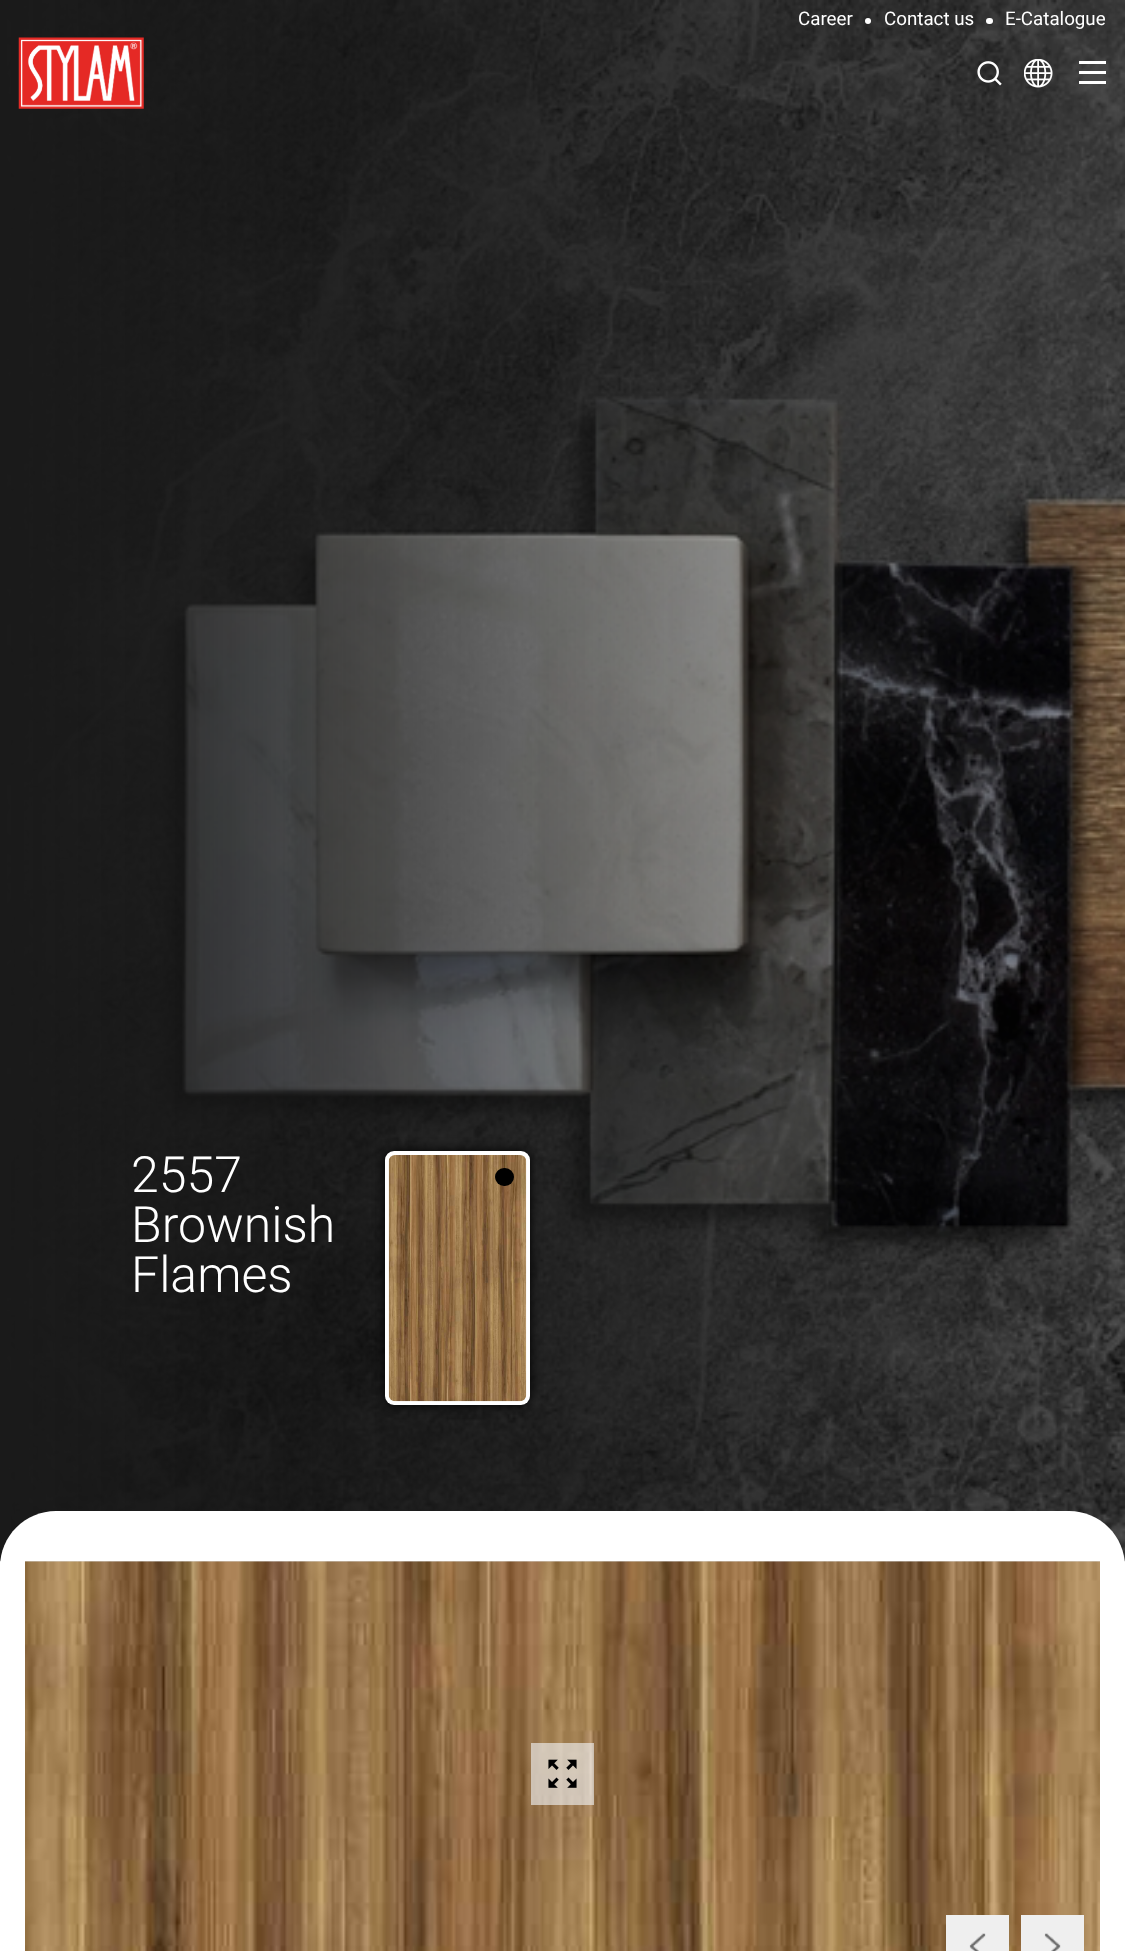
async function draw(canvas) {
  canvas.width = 1125;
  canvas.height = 1951;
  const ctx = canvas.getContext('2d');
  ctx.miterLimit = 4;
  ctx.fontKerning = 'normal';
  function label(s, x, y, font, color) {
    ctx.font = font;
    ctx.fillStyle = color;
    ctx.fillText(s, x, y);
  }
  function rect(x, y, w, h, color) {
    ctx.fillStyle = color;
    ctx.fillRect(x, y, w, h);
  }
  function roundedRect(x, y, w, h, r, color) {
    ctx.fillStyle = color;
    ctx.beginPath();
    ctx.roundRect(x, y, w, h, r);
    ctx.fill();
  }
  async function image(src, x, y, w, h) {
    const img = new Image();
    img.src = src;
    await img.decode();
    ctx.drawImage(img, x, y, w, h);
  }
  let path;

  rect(0, 0, 1125, 1951, '#fff');
  await image('assets/img4.png', 0, 0, 1125, 1562);
  label('Career', 798, 25, '18.75px Roboto', '#fff');
  ctx.beginPath();
  ctx.arc(868, 21, 3, 0, 2 * Math.PI);
  ctx.fill();
  label('Contact us', 884, 25, '18.75px Roboto', '#fff');
  roundedRect(986, 18, 7, 6, 3, '#fff');
  label('E-Catalogue', 1005, 25, '18.75px Roboto', '#fff');
  await image('assets/img1.png', 18, 37, 126, 72);
  await image('assets/img2.png', 977, 61, 25, 25);
  await image('assets/img3.png', 1024, 59, 29, 29);
  rect(1079, 71, 27, 3, '#fff');
  rect(1079, 61, 27, 3, '#fff');
  rect(1079, 81, 27, 3, '#fff');
  label('2557', 131, 1192, '300 50px Roboto', '#fff');
  label('Brownish', 131, 1242, '300 50px Roboto', '#fff');
  label('Flames', 131, 1292, '300 50px Roboto', '#fff');
  ctx.fillStyle = '#000';
  ctx.filter = 'blur(6px)';
  ctx.beginPath();
  ctx.roundRect(385, 1151, 145, 254, 9);
  ctx.fill();
  ctx.filter = 'none';
  roundedRect(385, 1151, 145, 254, 9, '#fff');
  await image('assets/img5.png', 388, 1155, 139, 247);
  roundedRect(495, 1168, 19, 18, 9, '#000');
  ctx.fillStyle = '#fff';
  path = new Path2D('M56 1511H1069C1100 1511 1125 1536 1125 1567V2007H0V1567C0 1536 25 1511 56 1511Z');
  ctx.fill(path);
  rect(25, 1561, 1075, 1, '#dedede');
  await image('assets/img6.png', 25, 1561, 1075, 390);
  rect(531, 1743, 63, 62, '#eeeeeea6');
  await image('assets/img7.png', 548, 1759, 29, 29);
  rect(946, 1915, 63, 36, '#efefef');
  await image('assets/img8.png', 969, 1933, 17, 18);
  rect(1021, 1915, 63, 36, '#efefef');
  await image('assets/img9.png', 1044, 1933, 17, 18);
}

draw(document.querySelector('canvas'));
